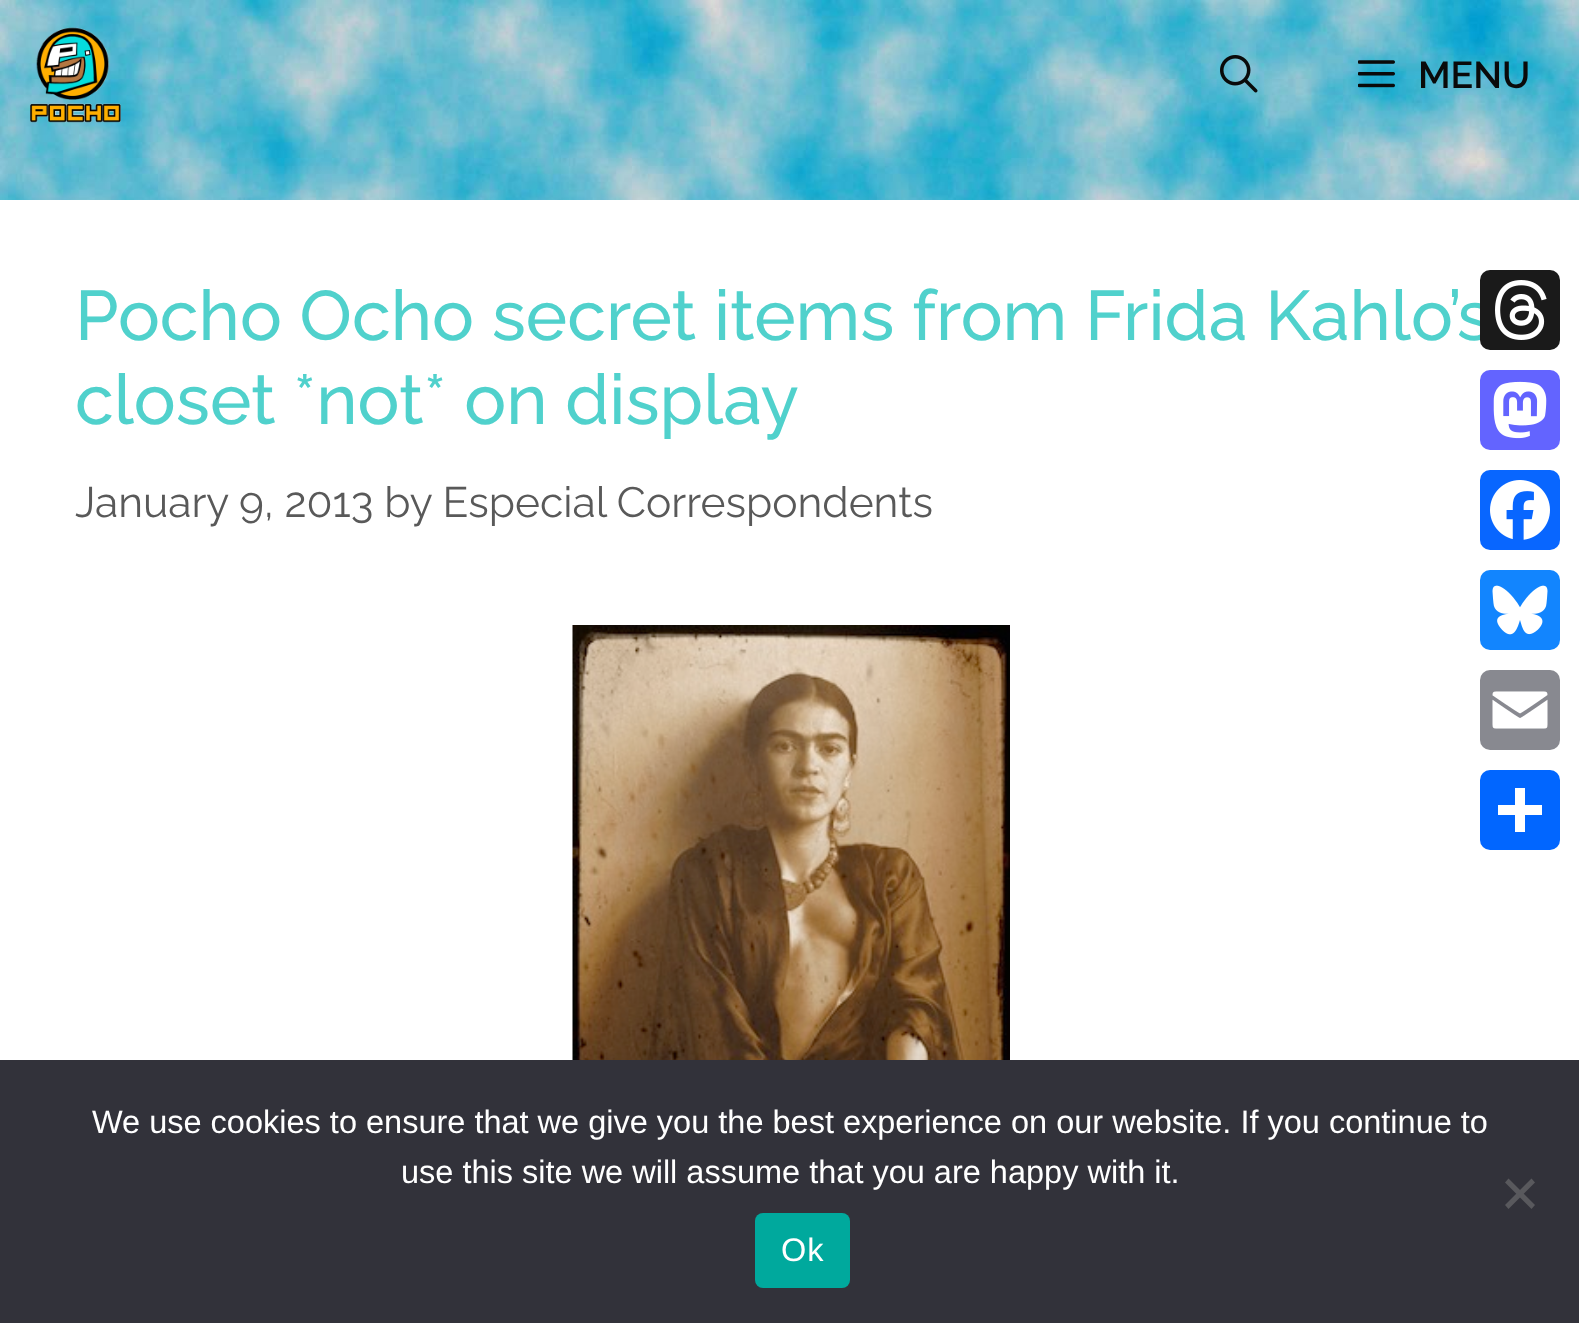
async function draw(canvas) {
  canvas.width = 1579;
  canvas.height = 1323;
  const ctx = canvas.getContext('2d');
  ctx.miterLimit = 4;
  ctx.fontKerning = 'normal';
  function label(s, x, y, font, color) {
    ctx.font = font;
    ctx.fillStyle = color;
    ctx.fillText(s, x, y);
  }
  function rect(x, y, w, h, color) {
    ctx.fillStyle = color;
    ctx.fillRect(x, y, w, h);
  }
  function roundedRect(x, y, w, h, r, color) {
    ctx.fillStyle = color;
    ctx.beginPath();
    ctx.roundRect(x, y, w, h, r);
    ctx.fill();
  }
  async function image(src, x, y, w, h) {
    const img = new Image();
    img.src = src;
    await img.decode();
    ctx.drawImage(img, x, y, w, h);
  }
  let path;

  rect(0, 0, 1579, 1323, '#fff');
  await image('assets/img1.png', 0, 0, 1579, 200);
  await image('assets/img2.png', 30, 27, 91, 96);
  await image('assets/img3.png', 1220, 55, 38, 38);
  await image('assets/img4.png', 1358, 60, 37, 28);
  label('MENU', 1418, 88, '600 37.5px Raleway', '#0a0a0a');
  label('Pocho Ocho secret items from Frida Kahlo’s', 75, 340, '500 70px Raleway', '#50d1cc');
  label('closet *not* on display', 75, 424, '500 70px Raleway', '#50d1cc');
  label('January 9, 2013 by Especial Correspondents', 75, 517, '42.5px Raleway', '#595959');
  await image('assets/img5.png', 572, 625, 438, 435);
  roundedRect(1480, 270, 80, 80, 10, '#1a1a1a');
  await image('assets/img6.png', 1495, 280, 52, 60);
  roundedRect(1480, 370, 80, 80, 10, '#6364ff');
  await image('assets/img7.png', 1493, 381, 54, 58);
  roundedRect(1480, 470, 80, 80, 10, '#0866ff');
  await image('assets/img8.png', 1490, 480, 60, 60);
  roundedRect(1480, 570, 80, 80, 10, '#1285fe');
  await image('assets/img9.png', 1492, 585, 56, 50);
  roundedRect(1480, 670, 80, 80, 10, '#888990');
  await image('assets/img10.png', 1492, 691, 56, 38);
  roundedRect(1480, 770, 80, 80, 10, '#0166ff');
  rect(1515, 788, 10, 44, '#fff');
  rect(1498, 805, 44, 10, '#fff');
  rect(0, 1060, 1579, 263, '#32323a');
  label('We use cookies to ensure that we give you the best experience on our website. If you continue to', 92, 1133, '32.5px Liberation Sans', '#fff');
  label('use this site we will assume that you are happy with it.', 401, 1183, '32.5px Liberation Sans', '#fff');
  ctx.fillStyle = '#59595d';
  path = new Path2D('M1531.5 1178.5L1535 1182.5L1508.5 1209L1505 1205Z');
  ctx.fill(path);
  path = new Path2D('M1505 1182.5L1508.5 1178.5L1535 1205L1531.5 1209Z');
  ctx.fill(path);
  roundedRect(755, 1213, 95, 75, 8, '#00a99d');
  ctx.letterSpacing = '1px';
  label('Ok', 781, 1261, '32.5px Liberation Sans', '#fff');
}

draw(document.querySelector('canvas'));
